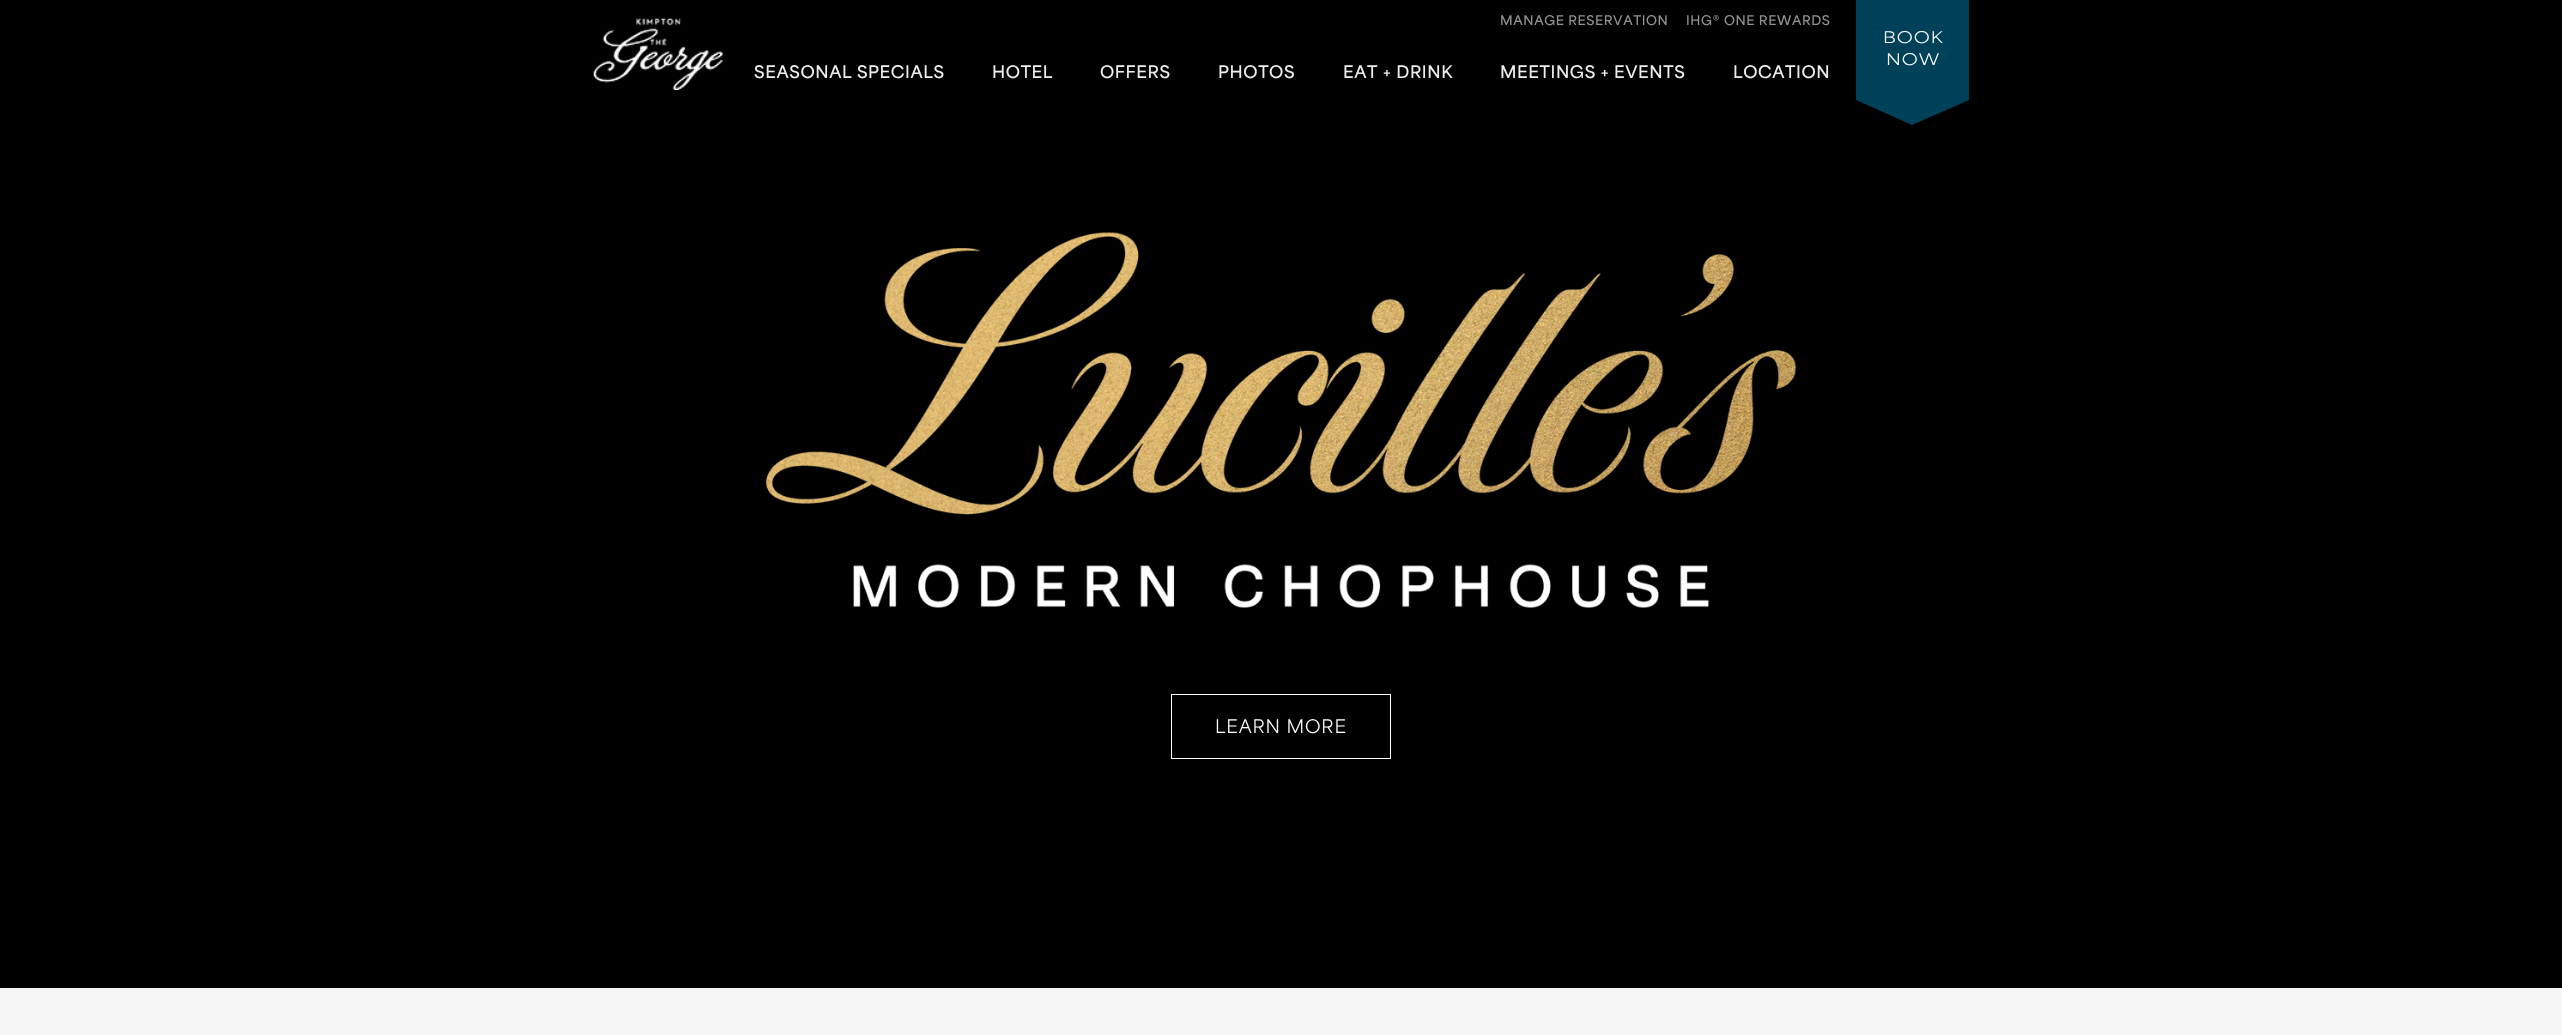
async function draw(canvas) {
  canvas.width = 2562;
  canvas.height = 1035;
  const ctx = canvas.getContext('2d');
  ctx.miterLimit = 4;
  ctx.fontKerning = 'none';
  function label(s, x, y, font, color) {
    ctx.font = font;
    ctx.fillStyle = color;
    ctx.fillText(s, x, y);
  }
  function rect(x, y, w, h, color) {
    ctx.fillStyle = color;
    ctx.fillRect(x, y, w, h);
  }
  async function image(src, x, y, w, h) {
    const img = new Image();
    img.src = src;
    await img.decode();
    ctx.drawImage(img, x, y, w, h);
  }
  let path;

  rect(0, 0, 2562, 1035, '#f5f5f5');
  rect(0, 0, 2562, 988, '#000');
  await image('assets/img1.png', 593, 18, 130, 72);
  ctx.letterSpacing = '0.6px';
  label('MANAGE RESERVATION', 1500, 25, '600 12.5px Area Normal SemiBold', '#929493');
  label('IHG® ONE REWARDS', 1686, 25, '600 12.5px Area Normal SemiBold', '#929493');
  rect(1856, 0, 113, 100, '#00415a');
  ctx.letterSpacing = '1px';
  label('BOOK', 1883, 43, '15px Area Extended', '#fff');
  label('NOW', 1886, 65, '15px Area Extended', '#fff');
  ctx.fillStyle = '#00415a';
  path = new Path2D('M1856 100H1969L1912 125Z');
  ctx.fill(path);
  ctx.letterSpacing = '0.6px';
  label('SEASONAL SPECIALS', 754, 78, '600 16.25px Area Normal SemiBold', '#eee');
  label('HOTEL', 992, 78, '600 16.25px Area Normal SemiBold', '#eee');
  label('OFFERS', 1100, 78, '600 16.25px Area Normal SemiBold', '#eee');
  label('PHOTOS', 1218, 78, '600 16.25px Area Normal SemiBold', '#eee');
  label('EAT + DRINK', 1343, 78, '600 16.25px Area Normal SemiBold', '#eee');
  label('MEETINGS + EVENTS', 1500, 78, '600 16.25px Area Normal SemiBold', '#eee');
  label('LOCATION', 1733, 78, '600 16.25px Area Normal SemiBold', '#eee');
  await image('assets/img2.png', 766, 232, 1031, 376);
  ctx.strokeStyle = '#fff';
  ctx.strokeRect(1171.5, 694.5, 219, 64);
  ctx.letterSpacing = '0.9px';
  label('LEARN MORE', 1215, 733, '17.5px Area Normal', '#fff');
}

draw(document.querySelector('canvas'));
